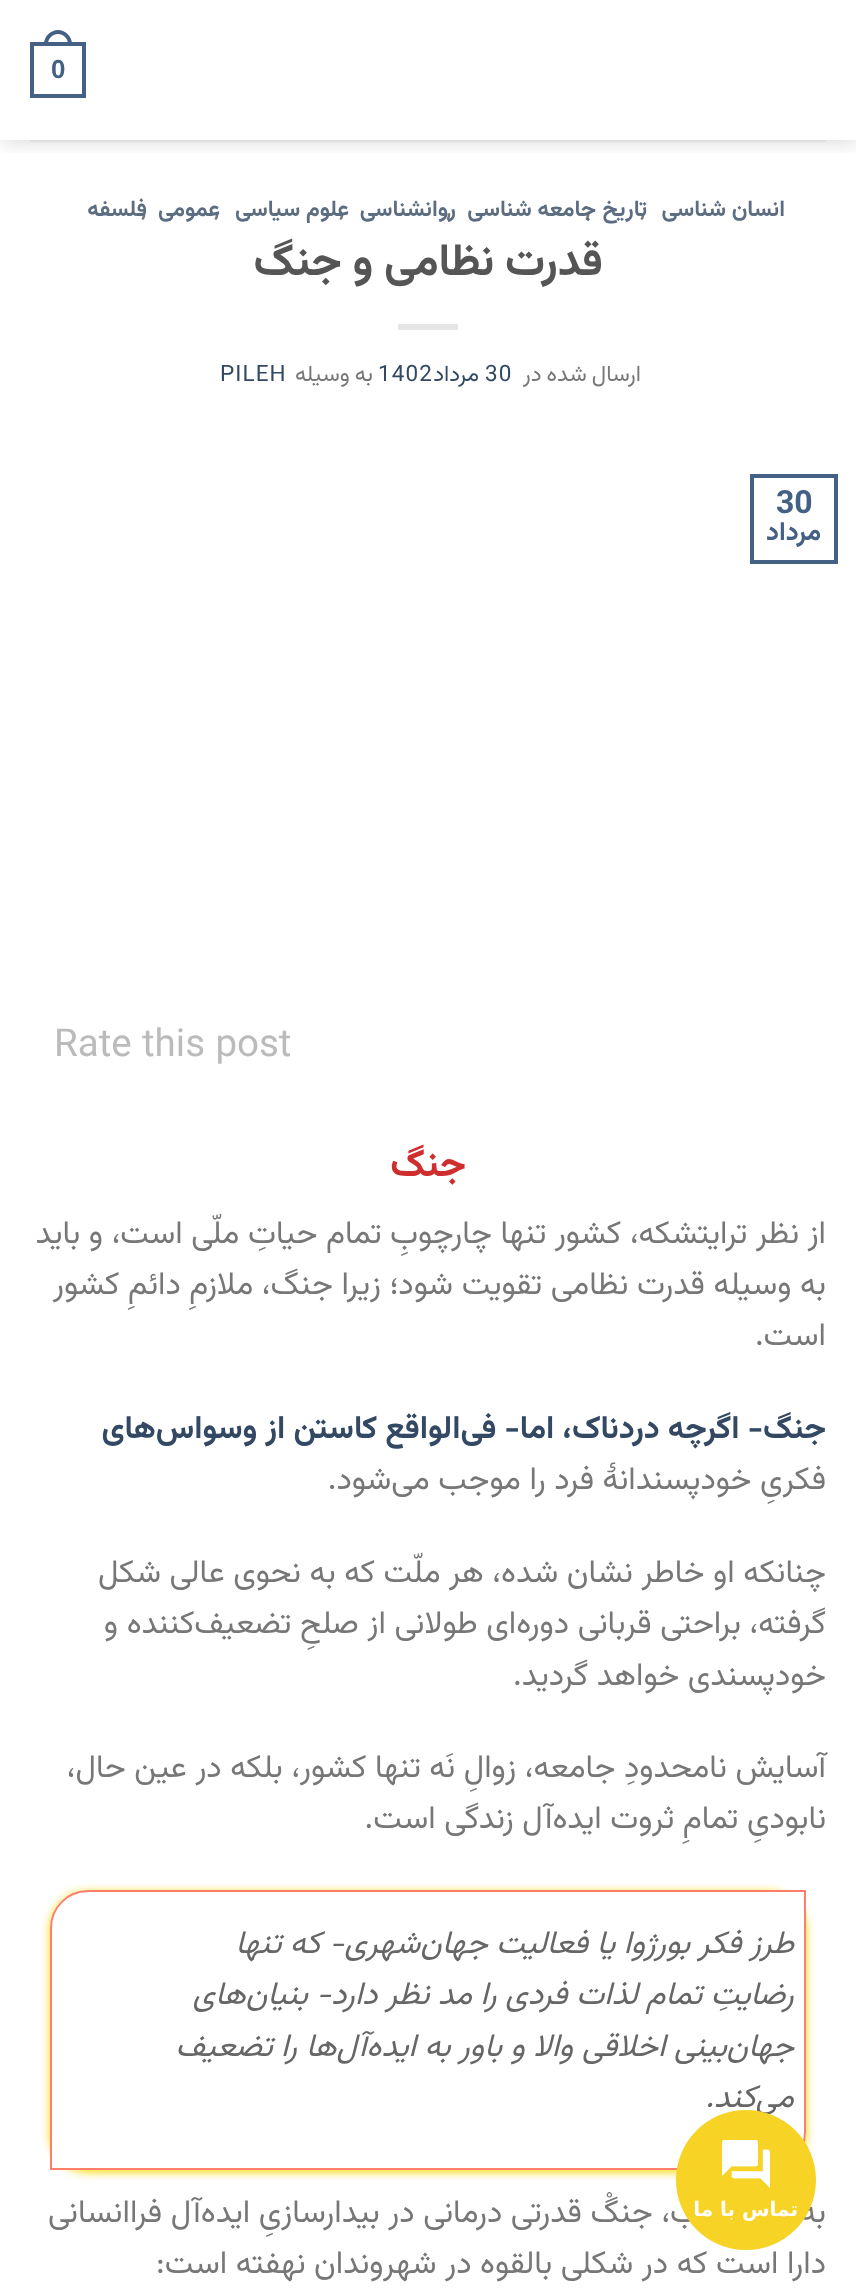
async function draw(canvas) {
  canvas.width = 856;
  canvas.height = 2289;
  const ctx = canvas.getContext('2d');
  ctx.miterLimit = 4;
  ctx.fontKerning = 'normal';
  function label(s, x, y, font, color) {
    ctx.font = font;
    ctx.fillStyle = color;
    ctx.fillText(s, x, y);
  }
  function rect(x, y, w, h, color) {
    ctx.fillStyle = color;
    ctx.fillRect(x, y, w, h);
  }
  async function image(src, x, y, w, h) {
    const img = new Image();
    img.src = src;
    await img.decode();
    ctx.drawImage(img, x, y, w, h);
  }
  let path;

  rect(0, 0, 856, 2289, '#fff');
  ctx.save();
  ctx.beginPath();
  ctx.rect(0, 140, 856, 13);
  ctx.clip();
  ctx.fillStyle = '#00000026';
  ctx.filter = 'blur(10px)';
  ctx.beginPath();
  ctx.rect(2, 2, 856, 140);
  ctx.fill();
  ctx.filter = 'none';
  ctx.restore();
  ctx.strokeStyle = '#446084';
  ctx.lineWidth = 4;
  ctx.strokeRect(32, 44, 52, 52);
  ctx.fillStyle = '#446084';
  path = new Path2D('M58 30C65.5 30 72 36.5 72 44V46H44V44C44 36.5 50.5 30 58 30ZM58 34C63.5 34 68 38.5 68 44V46H48V44C48 38.5 52.5 34 58 34Z');
  ctx.fill(path, 'evenodd');
  label('0', 51, 78, 'bold 26px Liberation Sans', '#446084');
  rect(30, 140, 796, 2, '#dfdfdf');
  ctx.letterSpacing = '1.1px';
  ctx.wordSpacing = '-1px';
  ctx.direction = 'rtl';
  label('انسان شناسی', 785, 216, 'bold 22.5px Vazirmatn', '#5c6d81');
  ctx.wordSpacing = '0px';
  ctx.direction = 'ltr';
  label(',', 640, 216, 'bold 22.5px Vazirmatn', '#777');
  ctx.direction = 'rtl';
  label('تاریخ', 647, 216, 'bold 22.5px Vazirmatn', '#5c6d81');
  ctx.direction = 'ltr';
  label(',', 585, 216, 'bold 22.5px Vazirmatn', '#777');
  ctx.wordSpacing = '-1px';
  ctx.direction = 'rtl';
  label('جامعه شناسی', 596, 216, 'bold 22.5px Vazirmatn', '#5c6d81');
  ctx.wordSpacing = '0px';
  ctx.direction = 'ltr';
  label(',', 446, 216, 'bold 22.5px Vazirmatn', '#777');
  ctx.direction = 'rtl';
  label('روانشناسی', 456, 216, 'bold 22.5px Vazirmatn', '#5c6d81');
  ctx.direction = 'ltr';
  label(',', 339, 216, 'bold 22.5px Vazirmatn', '#777');
  ctx.wordSpacing = '-1px';
  ctx.direction = 'rtl';
  label('علوم سیاسی', 349, 216, 'bold 22.5px Vazirmatn', '#5c6d81');
  ctx.wordSpacing = '0px';
  ctx.direction = 'ltr';
  label(',', 214, 216, 'bold 22.5px Vazirmatn', '#777');
  ctx.direction = 'rtl';
  label('عمومی', 220, 216, 'bold 22.5px Vazirmatn', '#5c6d81');
  ctx.direction = 'ltr';
  label(',', 141, 216, 'bold 22.5px Vazirmatn', '#777');
  ctx.direction = 'rtl';
  label('فلسفه', 147, 216, 'bold 22.5px Vazirmatn', '#5c6d81');
  ctx.letterSpacing = '0px';
  ctx.wordSpacing = '-0.5px';
  label('قدرت نظامی و جنگ', 603, 275, 'bold 44.75px Vazirmatn', '#555');
  rect(398, 324, 60, 6, '#e6e6e6');
  ctx.letterSpacing = '1.1px';
  ctx.wordSpacing = '-1px';
  label('ارسال شده در', 641, 381, '22.5px Vazirmatn', '#777');
  ctx.wordSpacing = '0px';
  ctx.direction = 'ltr';
  label('30', 485, 381, '22.5px Vazirmatn', '#334862');
  label('1402', 378, 381, '22.5px Vazirmatn', '#334862');
  ctx.direction = 'rtl';
  label('مرداد', 479, 381, '22.5px Vazirmatn', '#334862');
  ctx.wordSpacing = '-1px';
  label('به وسیله', 373, 381, '22.5px Vazirmatn', '#777');
  ctx.wordSpacing = '0px';
  ctx.direction = 'ltr';
  label('PILEH', 220, 381, '22.5px Vazirmatn', '#334862');
  ctx.strokeRect(752, 476, 84, 86);
  ctx.letterSpacing = '0px';
  label('30', 776, 513, 'bold 32px Vazirmatn', '#446084');
  ctx.direction = 'rtl';
  label('مرداد', 821, 540, 'bold 26px Vazirmatn', '#446084');
  ctx.direction = 'ltr';
  label('Rate this post', 54, 1056, '38.5px Vazirmatn', '#bbb');
  ctx.direction = 'rtl';
  label('جنگ', 466, 1176, 'bold 38.5px Vazirmatn', '#cf2e2e');
  label('از نظر ترایتشکه، کشور تنها چارچوبِ تمام حیاتِ ملّی است، و باید', 826, 1243, '32px Vazirmatn', '#777');
  label('به وسیله قدرت نظامی تقویت شود؛ زیرا جنگ، ملازمِ دائمِ کشور', 826, 1294, '32px Vazirmatn', '#777');
  label('است.', 826, 1345, '32px Vazirmatn', '#777');
  label('جنگ- اگرچه دردناک، اما- فی‌الواقع کاستن از وسواس‌های', 826, 1438, 'bold 32px Vazirmatn', '#334862');
  label('فکریِ خودپسندانۀ فرد را موجب می‌شود.', 826, 1489, '32px Vazirmatn', '#777');
  label('چنانکه او خاطر نشان شده، هر ملّت که به نحوی عالی شکل', 826, 1582, '32px Vazirmatn', '#777');
  label('گرفته، براحتی قربانی دوره‌ای طولانی از صلحِ تضعیف‌کننده و', 826, 1633, '32px Vazirmatn', '#777');
  label('خودپسندی خواهد گردید.', 826, 1685, '32px Vazirmatn', '#777');
  label('آسایش نامحدودِ جامعه، زوالِ نَه تنها کشور، بلکه در عین حال،', 826, 1777, '32px Vazirmatn', '#777');
  label('نابودیِ تمامِ ثروت ایده‌آل زندگی است.', 826, 1828, '32px Vazirmatn', '#777');
  ctx.save();
  path = new Path2D('M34 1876H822V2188H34ZM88 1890H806V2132C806 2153 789 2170 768 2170H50V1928C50 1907 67 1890 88 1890Z');
  ctx.clip(path, 'evenodd');
  ctx.fillStyle = '#ffd700';
  ctx.filter = 'blur(5px)';
  ctx.beginPath();
  ctx.roundRect(50, 1892, 756, 280, 38);
  ctx.fill();
  ctx.filter = 'none';
  ctx.restore();
  ctx.beginPath();
  ctx.roundRect(51, 1891, 754, 278, [37, 0, 37, 0]);
  ctx.strokeStyle = '#ff7f69';
  ctx.lineWidth = 2;
  ctx.stroke();
  label('طرز فکر بورژوا یا فعالیت جهان‌شهری- که تنها', 794, 1953, 'italic 32px Vazirmatn', '#666');
  label('رضایتِ تمام لذات فردی را مد نظر دارد- بنیان‌های', 794, 2004, 'italic 32px Vazirmatn', '#666');
  label('جهان‌بینی اخلاقی والا و باور به ایده‌آل‌ها را تضعیف', 794, 2056, 'italic 32px Vazirmatn', '#666');
  label('می‌کند.', 794, 2107, 'italic 32px Vazirmatn', '#666');
  label('به این ترتیب، جنگْ قدرتی درمانی در بیدارسازیِ ایده‌آل فراانسانی', 826, 2222, '32px Vazirmatn', '#777');
  label('دارا است که در شکلی بالقوه در شهروندان نهفته است:', 826, 2273, '32px Vazirmatn', '#777');
  ctx.fillStyle = '#f6d324';
  ctx.beginPath();
  ctx.arc(746, 2180, 70, 0, 2 * Math.PI);
  ctx.fill();
  await image('assets/img1.png', 722, 2140, 48, 48);
  label('تماس با ما', 798, 2216, 'bold 20px DejaVu Sans', '#fff');
}

draw(document.querySelector('canvas'));
